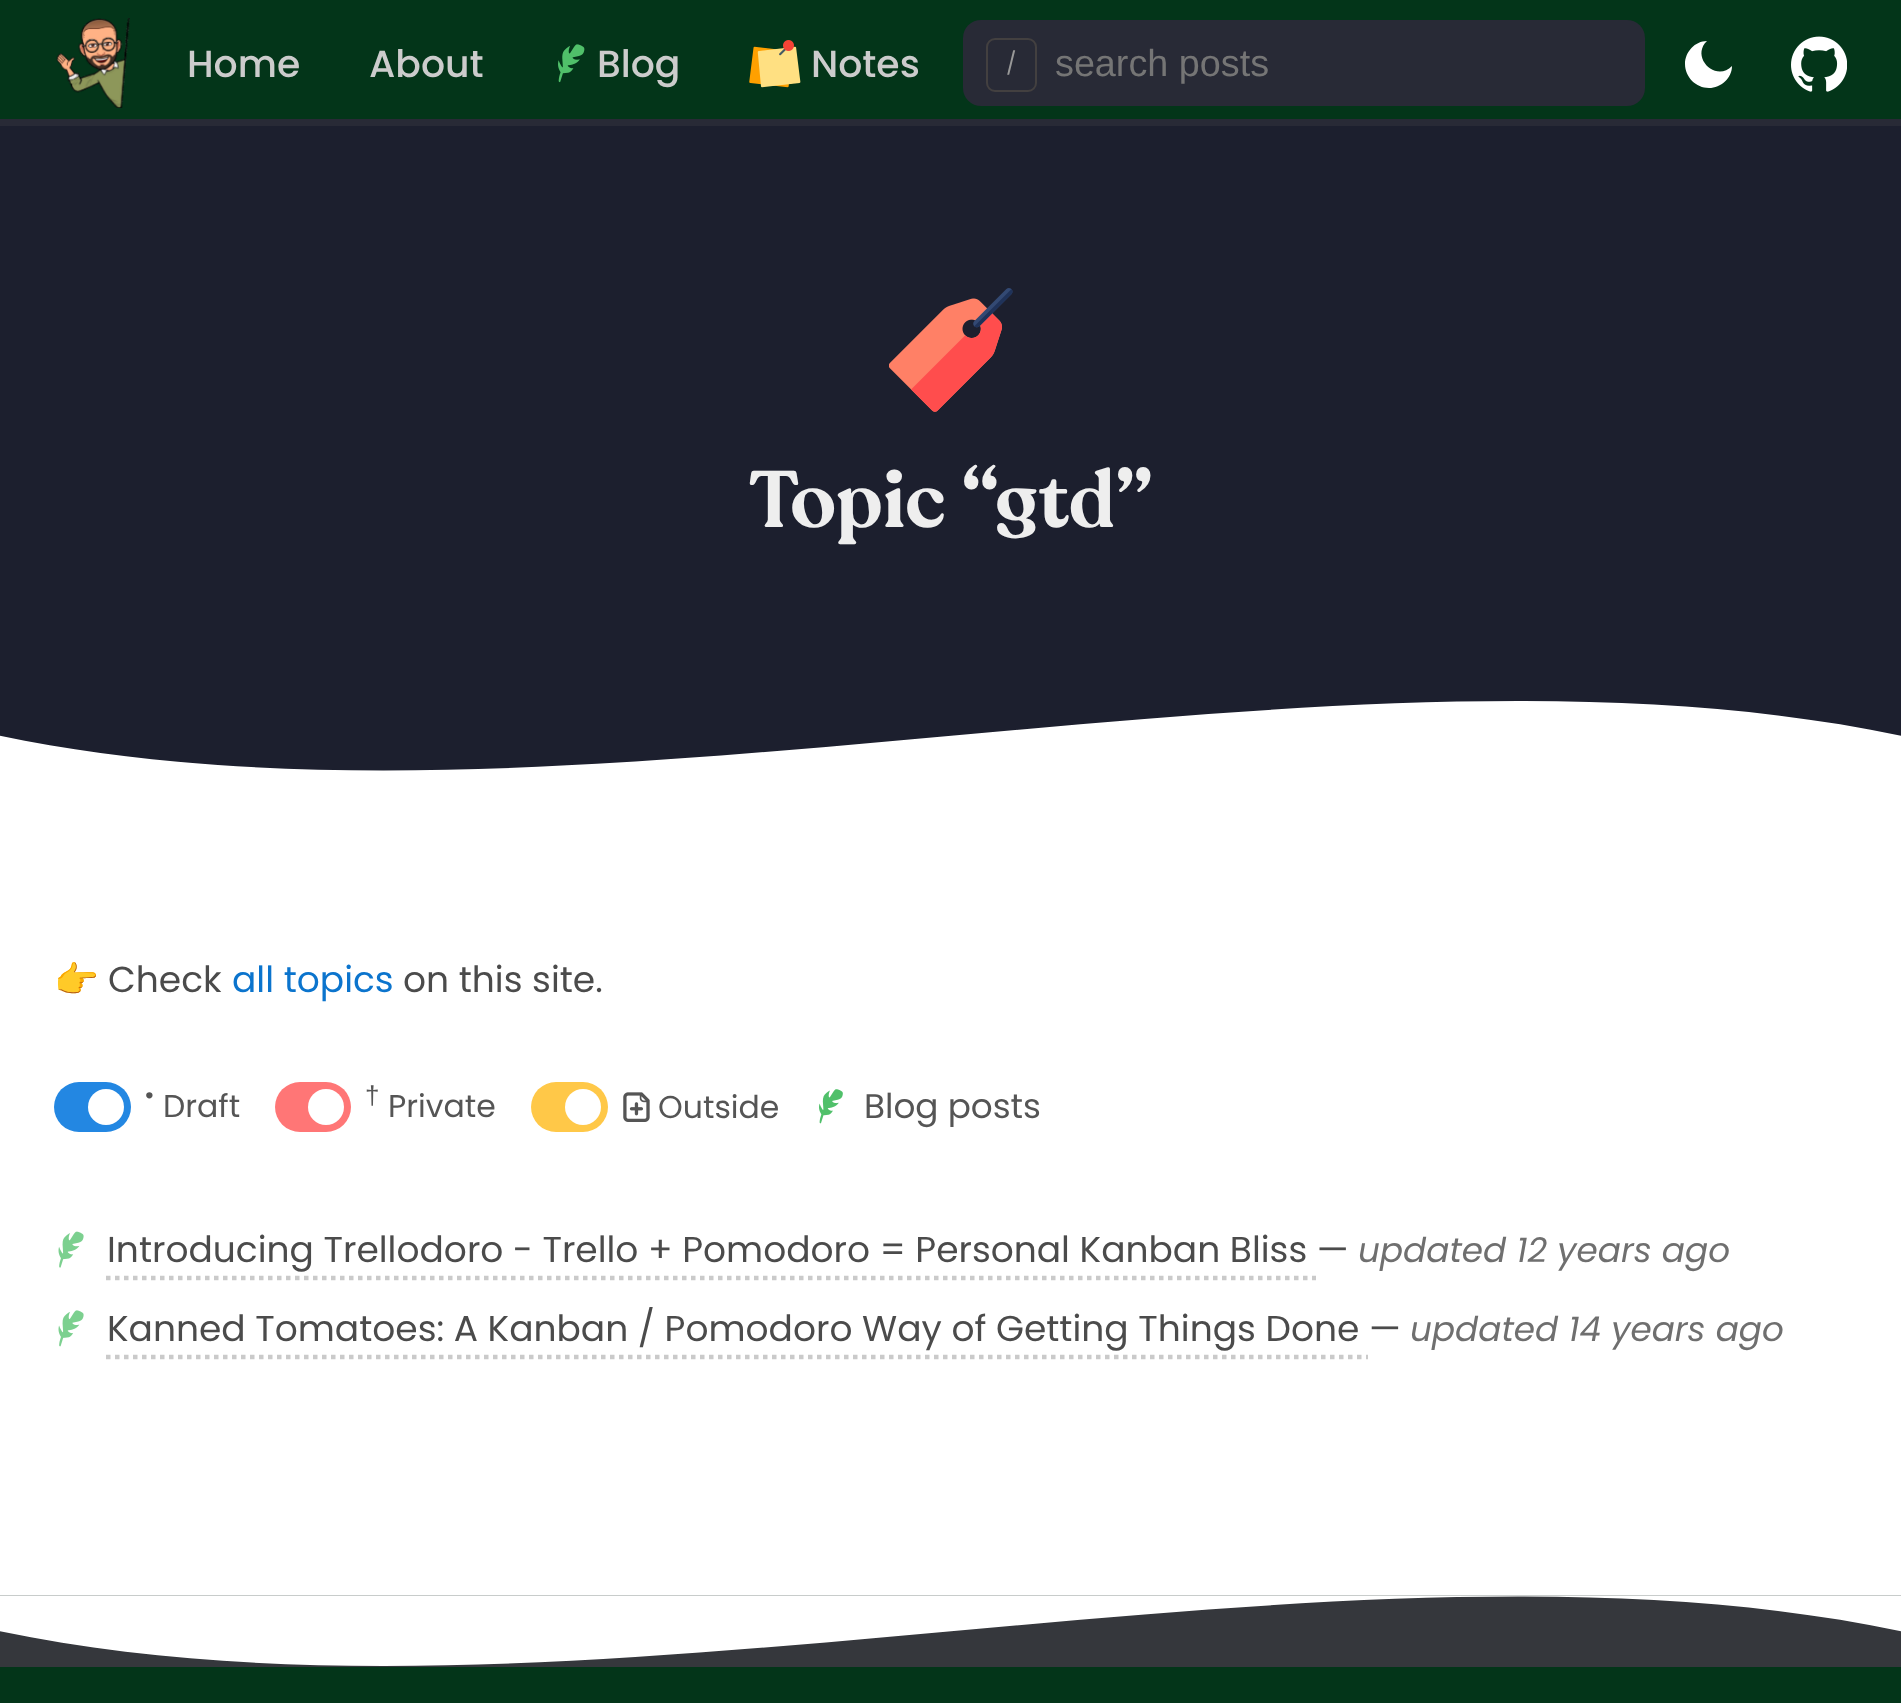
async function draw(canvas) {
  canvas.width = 1901;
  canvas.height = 1703;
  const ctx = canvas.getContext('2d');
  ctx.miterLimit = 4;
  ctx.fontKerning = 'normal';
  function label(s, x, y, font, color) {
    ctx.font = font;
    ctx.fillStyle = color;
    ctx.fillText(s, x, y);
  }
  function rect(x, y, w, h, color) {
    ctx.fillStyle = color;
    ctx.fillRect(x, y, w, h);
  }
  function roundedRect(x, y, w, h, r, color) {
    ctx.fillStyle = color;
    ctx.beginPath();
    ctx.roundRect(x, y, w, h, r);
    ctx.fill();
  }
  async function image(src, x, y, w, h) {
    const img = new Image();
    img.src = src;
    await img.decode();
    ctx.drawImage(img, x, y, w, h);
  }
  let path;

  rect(0, 0, 1901, 1703, '#fff');
  rect(0, 126, 1901, 574, '#1c1f2e');
  rect(0, 0, 1901, 119, '#033519');
  await image('assets/img1.png', 56, 18, 74, 90);
  label('Home', 187, 77, '500 37.75px Poppins', '#ccc');
  label('About', 369, 77, '500 37.75px Poppins', '#ccc');
  await image('assets/img2.png', 558, 44, 27, 39);
  label('Blog', 597, 77, '500 37.75px Poppins', '#ccc');
  await image('assets/img3.png', 749, 40, 52, 48);
  label('Notes', 811, 77, '500 37.75px Poppins', '#ccc');
  roundedRect(963, 20, 682, 86, 18, '#282a36');
  ctx.beginPath();
  ctx.roundRect(987, 39, 49, 52, 8);
  ctx.strokeStyle = '#434040';
  ctx.lineWidth = 2;
  ctx.stroke();
  label('/', 1006, 71, '22px Poppins', '#999');
  label('search posts', 1055, 76, '37.75px Liberation Sans', '#757575');
  ctx.fillStyle = '#fff';
  path = new Path2D('M1707 41C1690 57 1716 83 1732 66C1732 78 1721 88 1709 88C1696 88 1685 77 1685 64C1685 52 1695 41 1707 41Z');
  ctx.fill(path);
  await image('assets/img4.png', 1791, 36, 56, 56);
  rect(0, 119, 1901, 7, '#282a36');
  await image('assets/img5.png', 889, 288, 124, 124);
  label('Topic “gtd”', 749, 527, '600 79.25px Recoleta', '#eee');
  await image('assets/img6.png', 0, 700, 1901, 71);
  label('👉', 54, 992, '36px Noto Color Emoji', '#4b4b4b');
  label('Check', 108, 992, '36px Poppins', '#4b4b4b');
  label('all topics', 232, 992, '36px Poppins', '#0b74cd');
  label('on this site.', 403, 992, '36px Poppins', '#4b4b4b');
  roundedRect(54, 1082, 77, 50, 25, '#2387e2');
  ctx.fillStyle = '#fff';
  ctx.beginPath();
  ctx.arc(106, 1107, 18, 0, 2 * Math.PI);
  ctx.fill();
  label('•', 144, 1104, '26px Poppins', '#555');
  label('Draft', 163, 1117, '31.5px Poppins', '#555');
  roundedRect(275, 1082, 76, 50, 25, '#ff7676');
  ctx.fillStyle = '#fff';
  ctx.beginPath();
  ctx.arc(326, 1107, 18, 0, 2 * Math.PI);
  ctx.fill();
  label('†', 365, 1104, '26px Liberation Sans', '#555');
  label('Private', 388, 1117, '31.5px Poppins', '#555');
  roundedRect(531, 1082, 77, 50, 25, '#ffc848');
  ctx.fillStyle = '#fff';
  ctx.beginPath();
  ctx.arc(583, 1107, 18, 0, 2 * Math.PI);
  ctx.fill();
  await image('assets/img7.png', 623, 1092, 27, 30);
  label('Outside', 658, 1118, '31.5px Poppins', '#555');
  await image('assets/img8.png', 819, 1089, 24, 35);
  label('Blog posts', 864, 1118, '34.25px Poppins', '#555');
  await image('assets/img9.png', 58, 1231, 26, 37);
  label('Introducing Trellodoro - Trello + Pomodoro = Personal Kanban Bliss —', 107, 1262, '36px Poppins', '#4b4b4b');
  path = new Path2D('M106 1278H1316');
  ctx.strokeStyle = '#cacaca';
  ctx.lineWidth = 4.5;
  ctx.setLineDash([4.5, 4.5]);
  ctx.stroke(path);
  label('updated 12 years ago', 1358, 1262, 'italic 34.25px Poppins', '#6f6f6f');
  await image('assets/img10.png', 58, 1310, 26, 37);
  label('Kanned Tomatoes: A Kanban / Pomodoro Way of Getting Things Done —', 107, 1341, '36px Poppins', '#4b4b4b');
  path = new Path2D('M106 1357H1368');
  ctx.stroke(path);
  label('updated 14 years ago', 1410, 1341, 'italic 34.25px Poppins', '#6f6f6f');
  rect(0, 1595, 1901, 108, '#033519');
  await image('assets/img11.png', 0, 1595, 1901, 72);
}

draw(document.querySelector('canvas'));
